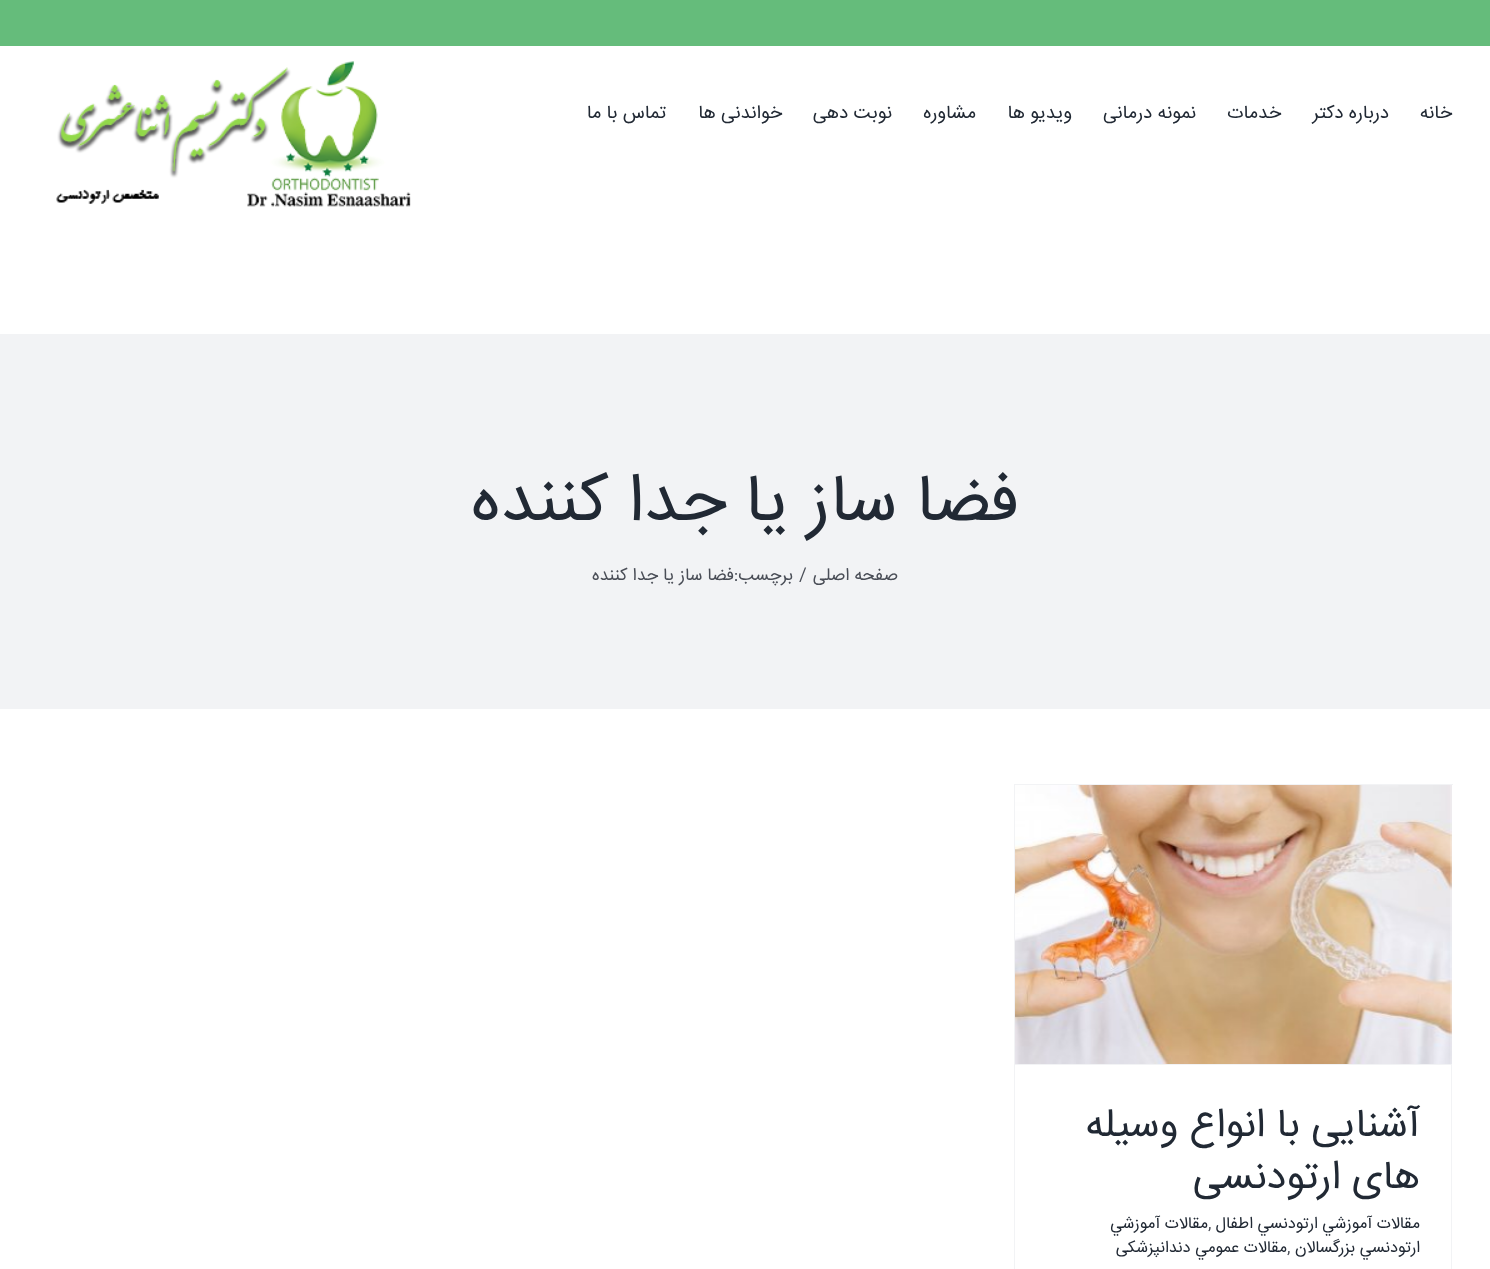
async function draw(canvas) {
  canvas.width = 1490;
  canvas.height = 1269;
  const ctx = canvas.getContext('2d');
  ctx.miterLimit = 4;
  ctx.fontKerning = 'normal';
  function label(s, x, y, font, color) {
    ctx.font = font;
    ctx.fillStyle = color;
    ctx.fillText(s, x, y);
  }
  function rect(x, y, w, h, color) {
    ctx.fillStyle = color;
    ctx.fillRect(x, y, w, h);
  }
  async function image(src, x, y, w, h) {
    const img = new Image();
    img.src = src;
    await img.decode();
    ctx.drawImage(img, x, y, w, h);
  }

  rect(0, 0, 1490, 1269, '#fff');
  rect(0, 0, 1490, 46, '#65bc7b');
  ctx.direction = 'rtl';
  label('خانه', 1452, 118, '18.75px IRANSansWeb', '#212934');
  label('درباره دکتر', 1389, 118, '18.75px IRANSansWeb', '#212934');
  label('خدمات', 1281, 118, '18.75px IRANSansWeb', '#212934');
  label('نمونه درمانی', 1196, 118, '18.75px IRANSansWeb', '#212934');
  label('ویدیو ها', 1072, 118, '18.75px IRANSansWeb', '#212934');
  label('مشاوره', 976, 118, '18.75px IRANSansWeb', '#212934');
  label('نوبت دهی', 892, 118, '18.75px IRANSansWeb', '#212934');
  label('خواندنی ها', 782, 118, '18.75px IRANSansWeb', '#212934');
  label('تماس با ما', 666, 118, '18.75px IRANSansWeb', '#212934');
  await image('assets/img1.png', 56, 61, 355, 146);
  rect(0, 334, 1490, 375, '#f2f3f5');
  label('فضا ساز یا جدا کننده', 1019, 520, '67.5px IRANSansWeb', '#212934');
  label('صفحه اصلی', 898, 580, '17.5px IRANSansWeb', '#4a4e57');
  ctx.direction = 'ltr';
  label('/', 799, 580, '17.5px IRANSansWeb', '#4a4e57');
  ctx.direction = 'rtl';
  label('برچسب:', 793, 580, '17.5px IRANSansWeb', '#4a4e57');
  label('فضا ساز یا جدا کننده', 734, 580, '17.5px IRANSansWeb', '#4a4e57');
  rect(1014, 784, 439, 1, '#f2f3f5');
  rect(1451, 784, 1, 485, '#f2f3f5');
  rect(1014, 784, 1, 485, '#f2f3f5');
  rect(1015, 1064, 436, 1, '#f2f3f5');
  await image('assets/img2.png', 1015, 785, 437, 279);
  label('آشنایی با انواع وسیله', 1420, 1136, '40px IRANSansWeb', '#212934');
  label('‌های ارتودنسی', 1420, 1188, '40px IRANSansWeb', '#212934');
  label('مقالات آموزشي ارتودنسي اطفال', 1420, 1228, '16.25px IRANSansWeb', '#212934');
  ctx.direction = 'ltr';
  label(',', 1208, 1228, '16.25px IRANSansWeb', '#4a4e57');
  ctx.direction = 'rtl';
  label('مقالات آموزشي', 1208, 1228, '16.25px IRANSansWeb', '#212934');
  label('ارتودنسي بزرگسالان', 1420, 1252, '16.25px IRANSansWeb', '#212934');
  ctx.direction = 'ltr';
  label(',', 1287, 1252, '16.25px IRANSansWeb', '#4a4e57');
  ctx.direction = 'rtl';
  label('مقالات عمومي دندانپزشکی', 1287, 1252, '16.25px IRANSansWeb', '#212934');
}

draw(document.querySelector('canvas'));
